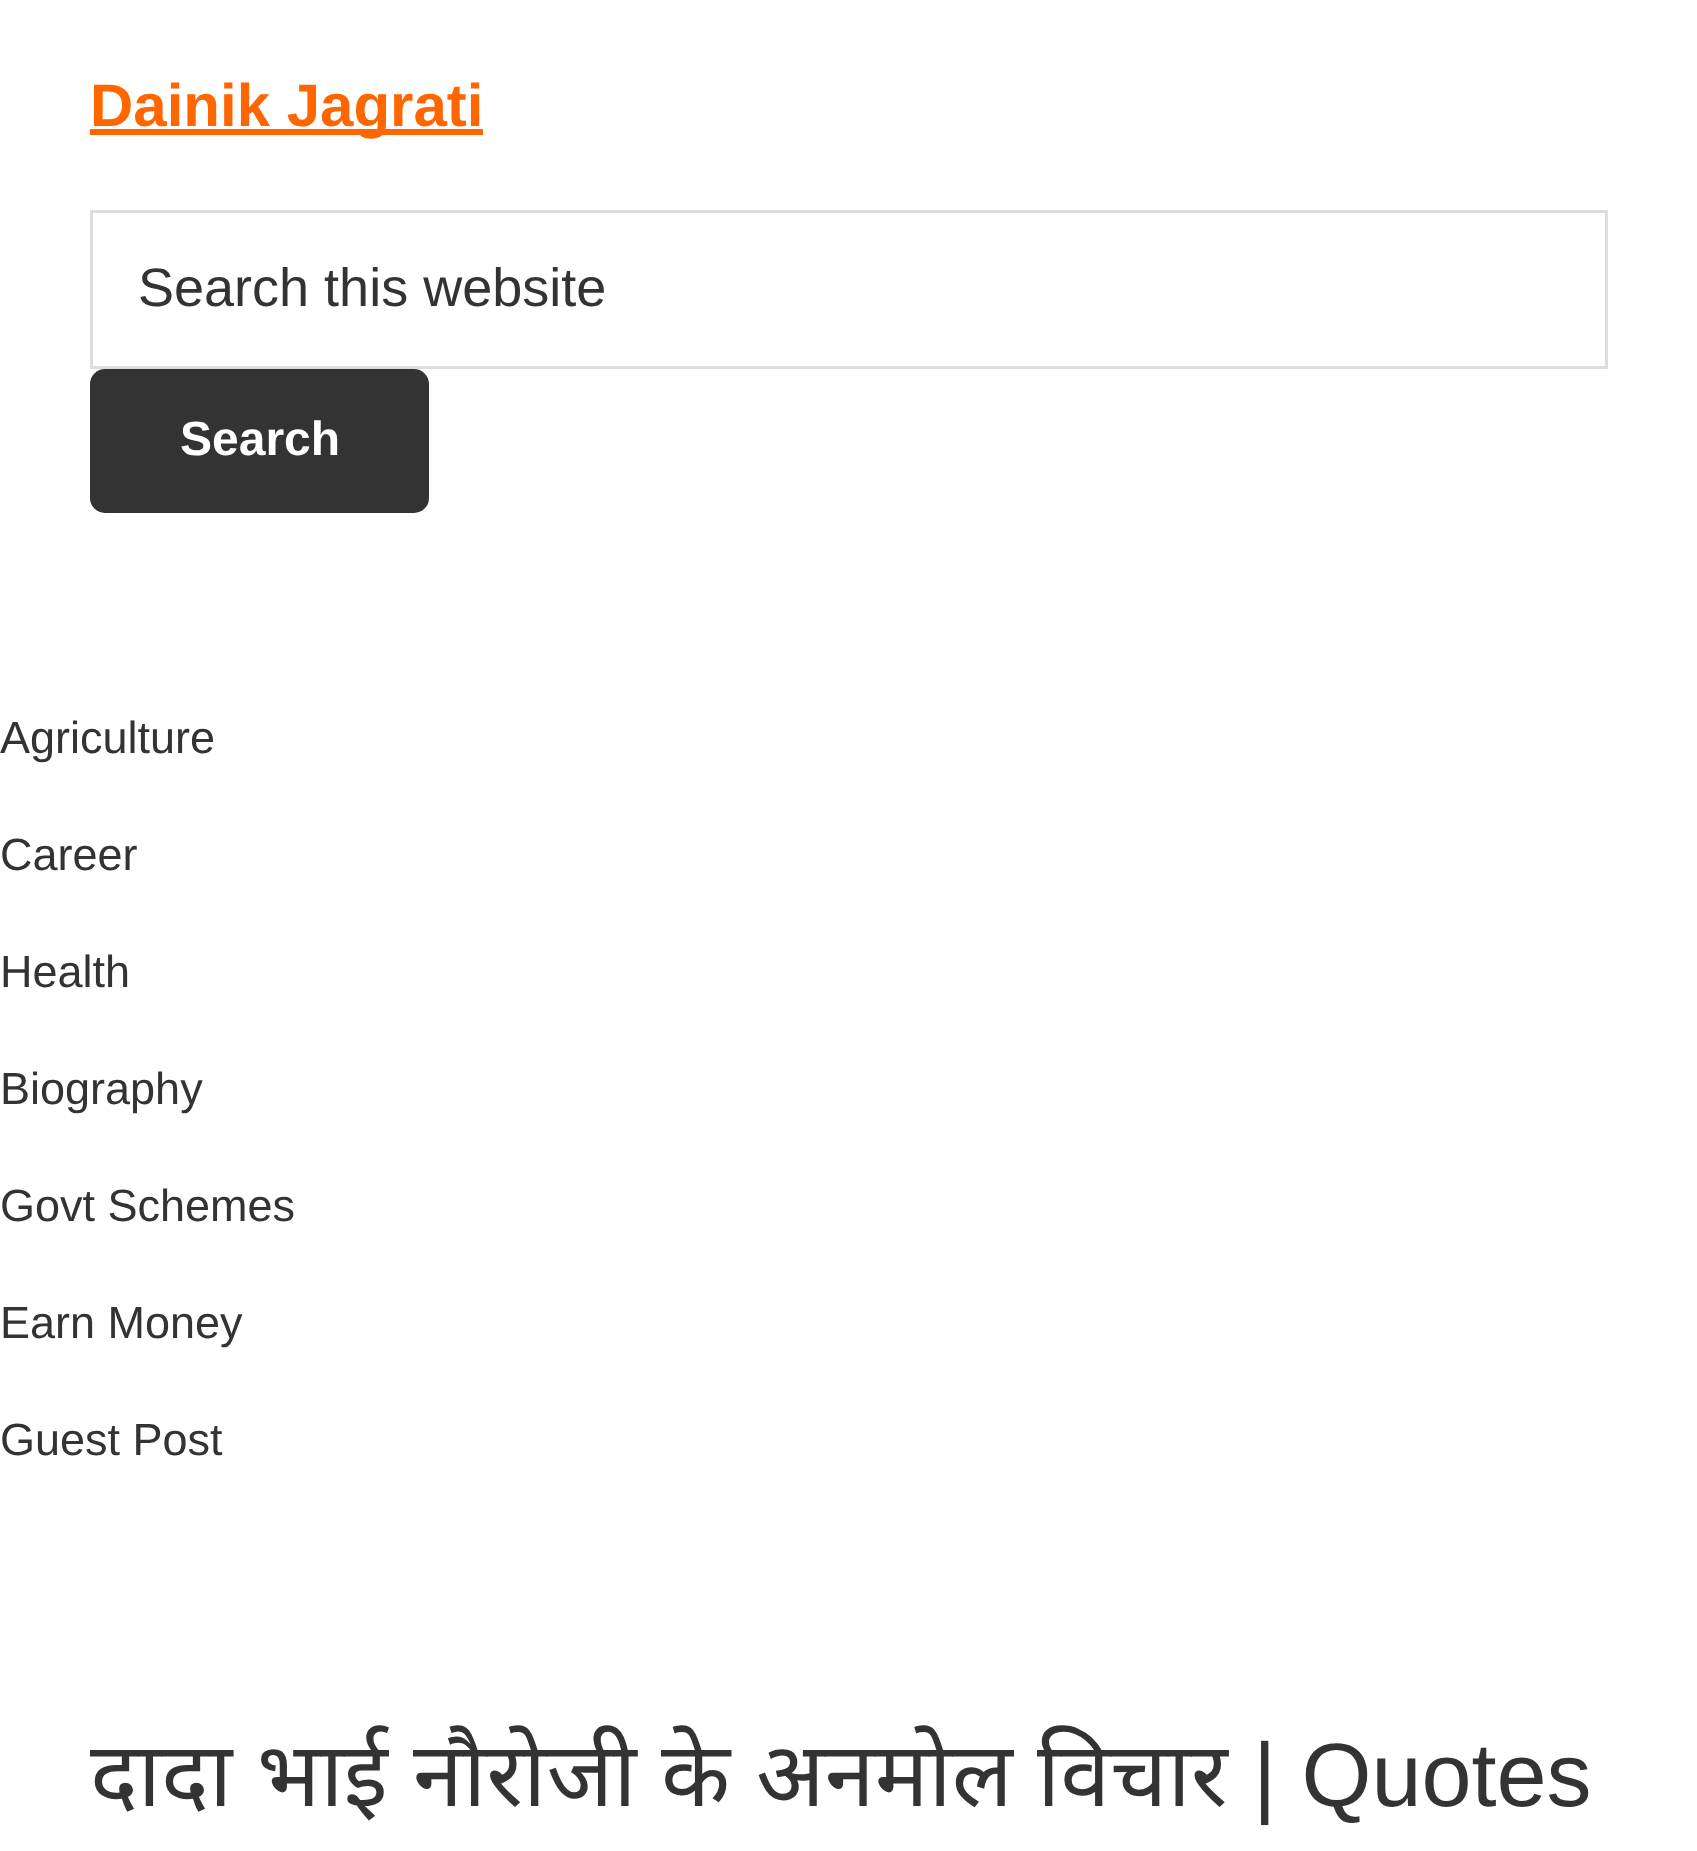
async function draw(canvas) {
  canvas.width = 1697;
  canvas.height = 1851;
  const ctx = canvas.getContext('2d');
  ctx.miterLimit = 4;
  ctx.fontKerning = 'normal';
  function label(s, x, y, font, color) {
    ctx.font = font;
    ctx.fillStyle = color;
    ctx.fillText(s, x, y);
  }
  function rect(x, y, w, h, color) {
    ctx.fillStyle = color;
    ctx.fillRect(x, y, w, h);
  }
  function roundedRect(x, y, w, h, r, color) {
    ctx.fillStyle = color;
    ctx.beginPath();
    ctx.roundRect(x, y, w, h, r);
    ctx.fill();
  }

  rect(0, 0, 1697, 1851, '#fff');
  rect(90, 129, 393, 6, '#f60');
  label('Dainik Jagrati', 90, 126, 'bold 60px Liberation Sans', '#f60');
  ctx.strokeStyle = '#ddd';
  ctx.lineWidth = 3;
  ctx.strokeRect(91.5, 211.5, 1515, 156);
  label('Search this website', 138, 306, '54px Liberation Sans', '#333');
  roundedRect(90, 369, 339, 144, 15, '#333');
  label('Search', 180, 455, 'bold 48px Liberation Sans', '#fff');
  label('Agriculture', 0, 753, '45px Liberation Sans', '#333');
  label('Career', 0, 870, '45px Liberation Sans', '#333');
  label('Health', 0, 987, '45px Liberation Sans', '#333');
  label('Biography', 0, 1104, '45px Liberation Sans', '#333');
  label('Govt Schemes', 0, 1221, '45px Liberation Sans', '#333');
  label('Earn Money', 0, 1338, '45px Liberation Sans', '#333');
  label('Guest Post', 0, 1455, '45px Liberation Sans', '#333');
  label('दादा', 90, 1806, '90px Noto Sans', '#333');
  label('भाई', 257, 1806, '90px Noto Sans', '#333');
  label('नौरोजी', 413, 1806, '90px Noto Sans', '#333');
  label('के', 661, 1806, '90px Noto Sans', '#333');
  label('अनमोल', 756, 1806, '90px Noto Sans', '#333');
  label('विचार', 1037, 1806, '90px Noto Sans', '#333');
  label('| Quotes', 1253, 1806, '90px Liberation Sans', '#333');
}

draw(document.querySelector('canvas'));
